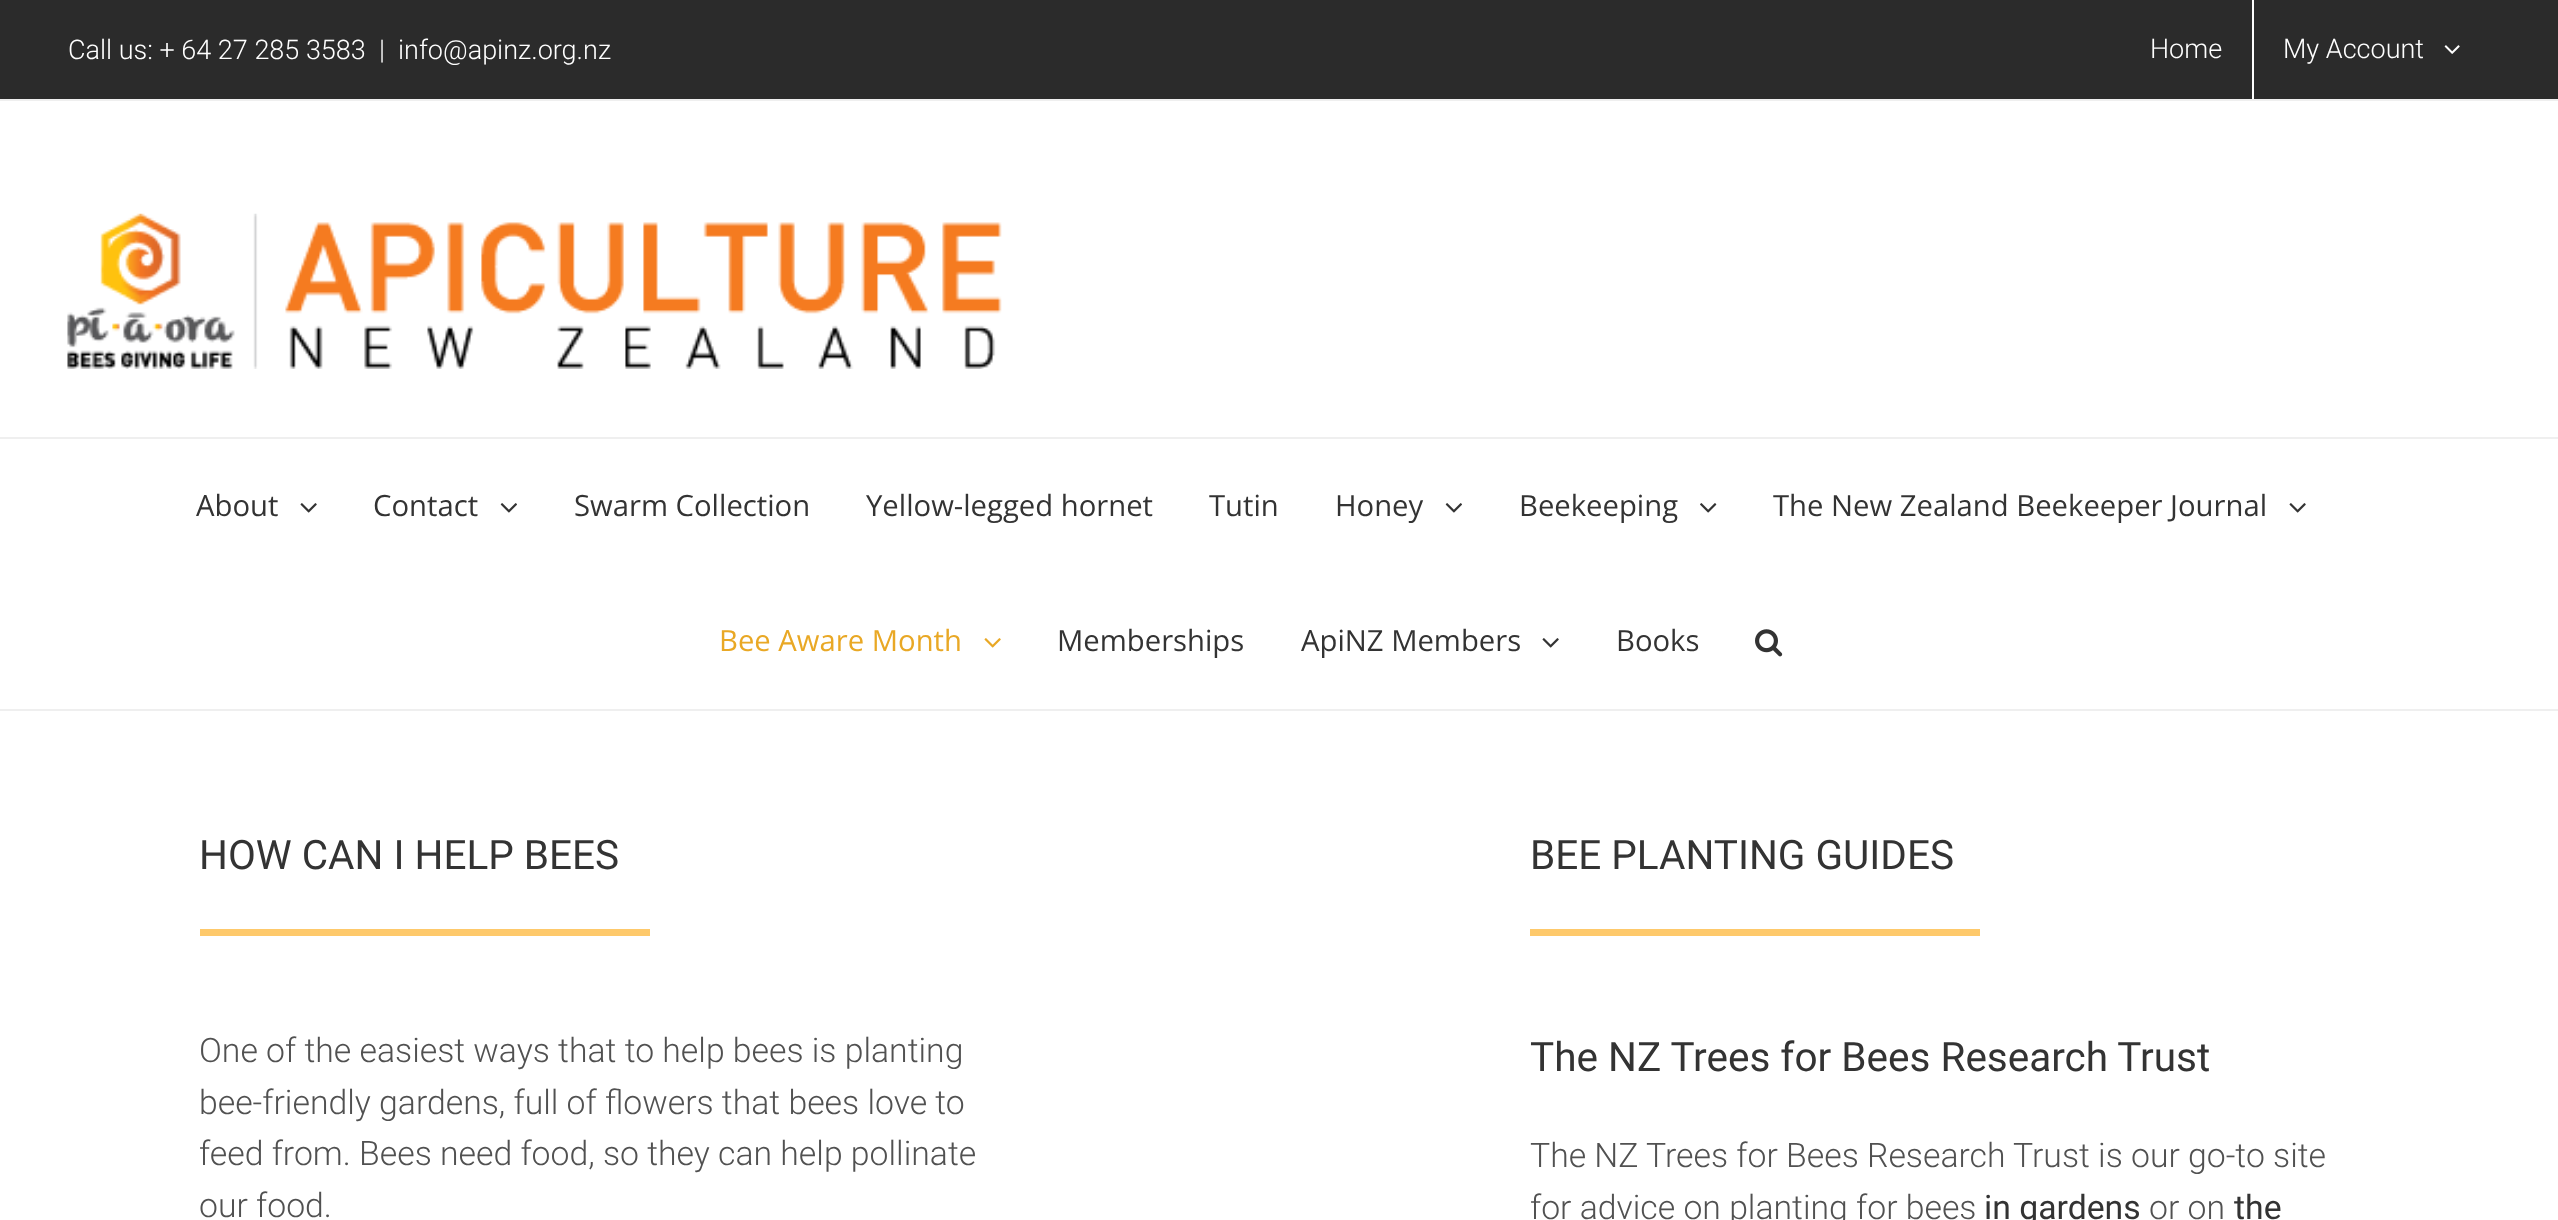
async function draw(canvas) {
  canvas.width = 2558;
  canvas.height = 1220;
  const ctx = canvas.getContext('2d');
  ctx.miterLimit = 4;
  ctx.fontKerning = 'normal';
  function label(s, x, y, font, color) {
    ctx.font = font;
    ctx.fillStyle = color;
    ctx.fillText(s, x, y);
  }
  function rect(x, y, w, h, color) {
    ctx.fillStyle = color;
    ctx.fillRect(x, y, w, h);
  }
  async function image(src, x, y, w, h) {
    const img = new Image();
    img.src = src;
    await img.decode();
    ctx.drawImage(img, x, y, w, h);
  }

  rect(0, 0, 2558, 1220, '#fff');
  rect(0, 0, 2558, 99, '#2b2b2b');
  rect(0, 99, 2558, 2, '#efefef');
  label('Call us: + 64 27 285 3583', 68, 59, '300 27px Roboto', '#fff');
  label('|', 379, 59, '300 27px Roboto', '#fff');
  label('info@apinz.org.nz', 398, 59, '300 27px Roboto', '#fff');
  label('Home', 2150, 58, '300 27px Roboto', '#fff');
  rect(2252, 0, 2, 99, '#fff');
  label('My Account', 2283, 58, '300 27px Roboto', '#fff');
  await image('assets/img1.png', 2444, 45, 16, 9);
  rect(0, 437, 2558, 2, '#efefef');
  await image('assets/img2.png', 67, 213, 935, 156);
  rect(0, 709, 2558, 2, '#efefef');
  label('About', 196, 516, '29.25px Open Sans', '#333');
  await image('assets/img3.png', 300, 503, 17, 10);
  label('Contact', 373, 516, '29.25px Open Sans', '#333');
  await image('assets/img4.png', 500, 503, 17, 10);
  label('Swarm Collection', 574, 516, '29.25px Open Sans', '#333');
  label('Yellow-legged hornet', 866, 516, '29.25px Open Sans', '#333');
  label('Tutin', 1209, 516, '29.25px Open Sans', '#333');
  label('Honey', 1335, 516, '29.25px Open Sans', '#333');
  await image('assets/img4.png', 1445, 503, 17, 10);
  label('Beekeeping', 1519, 516, '29.25px Open Sans', '#333');
  await image('assets/img5.png', 1700, 503, 17, 10);
  label('The New Zealand Beekeeper Journal', 1773, 516, '29.25px Open Sans', '#333');
  await image('assets/img3.png', 2289, 503, 17, 10);
  label('Bee Aware Month', 719, 651, '29.25px Open Sans', '#e9a825');
  await image('assets/img6.png', 984, 638, 17, 10);
  label('Memberships', 1057, 651, '29.25px Open Sans', '#333');
  label('ApiNZ Members', 1301, 651, '29.25px Open Sans', '#333');
  await image('assets/img3.png', 1542, 638, 17, 10);
  label('Books', 1616, 651, '29.25px Open Sans', '#333');
  await image('assets/img7.png', 1755, 629, 28, 28);
  label('HOW CAN I HELP BEES', 199, 869, '40.5px Roboto', '#333');
  rect(200, 929, 450, 7, '#fec96b');
  label('One of the easiest ways that to help bees is planting', 199, 1062, '300 33.75px Roboto', '#515151');
  label('bee-friendly gardens, full of flowers that bees love to', 199, 1114, '300 33.75px Roboto', '#515151');
  label('feed from. Bees need food, so they can help pollinate', 199, 1165, '300 33.75px Roboto', '#515151');
  label('our food.', 199, 1217, '300 33.75px Roboto', '#515151');
  label('BEE PLANTING GUIDES', 1530, 869, '40.5px Roboto', '#333');
  rect(1530, 929, 450, 7, '#fec96b');
  label('The NZ Trees for Bees Research Trust', 1530, 1071, '40.5px Roboto', '#333');
  label('The NZ Trees for Bees Research Trust is our go-to site', 1530, 1167, '300 33.75px Roboto', '#515151');
  label('for advice on planting for bees', 1530, 1219, '300 33.75px Roboto', '#515151');
  label('in gardens', 1984, 1219, '33.75px Roboto', '#333');
  label('or on', 2149, 1219, '300 33.75px Roboto', '#515151');
  label('the', 2234, 1219, '33.75px Roboto', '#333');
}

draw(document.querySelector('canvas'));
